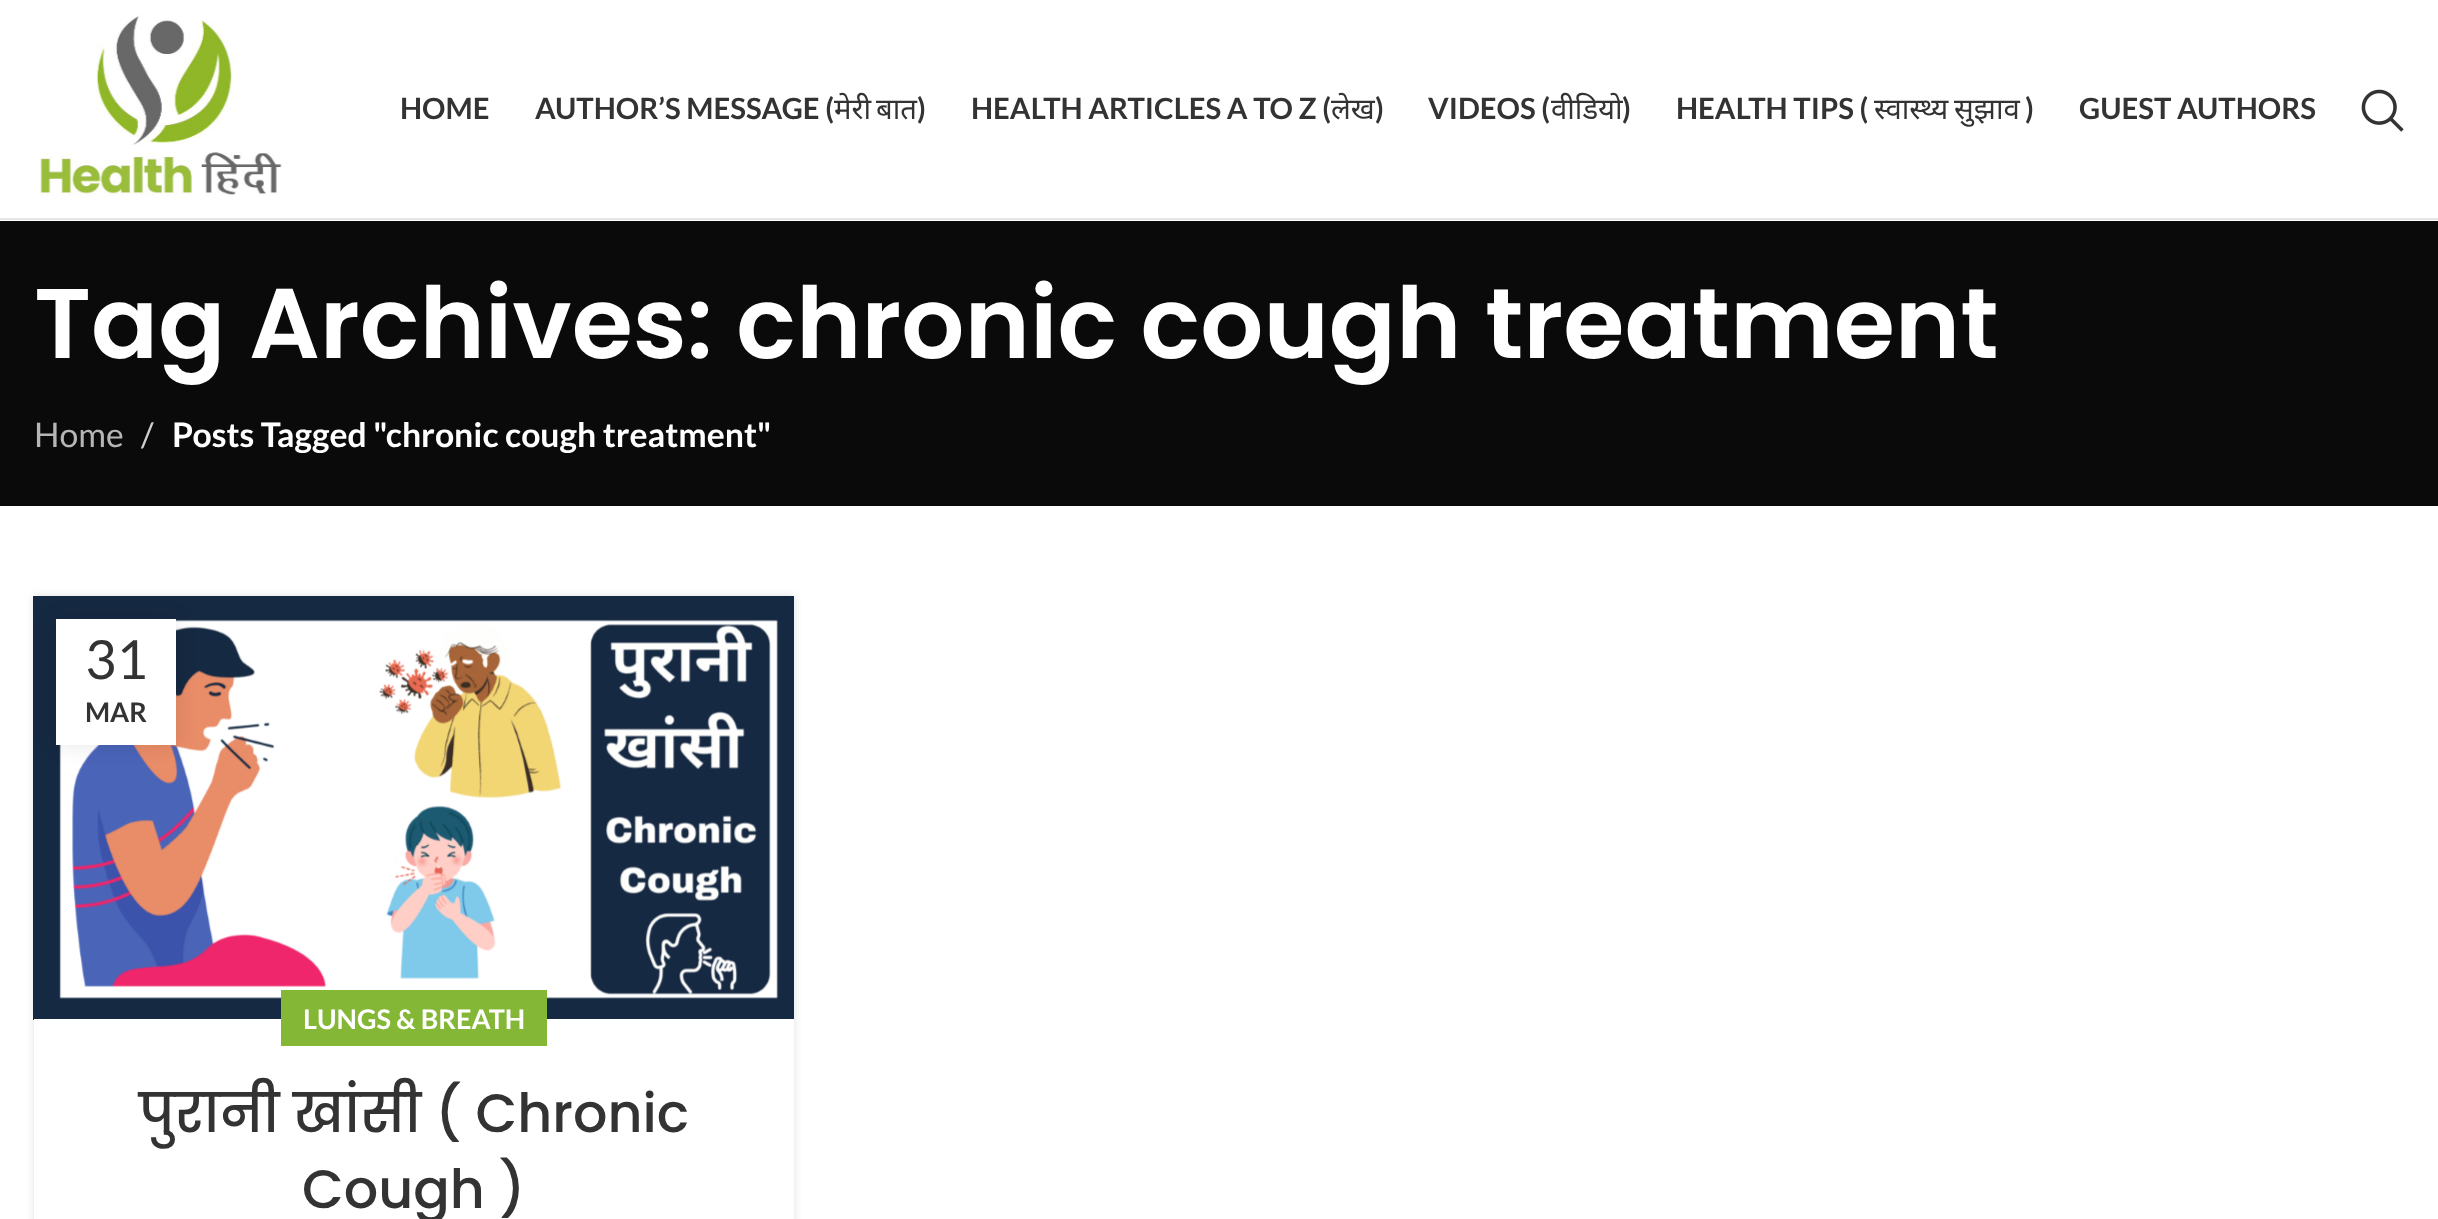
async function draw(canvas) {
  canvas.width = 2438;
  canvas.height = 1219;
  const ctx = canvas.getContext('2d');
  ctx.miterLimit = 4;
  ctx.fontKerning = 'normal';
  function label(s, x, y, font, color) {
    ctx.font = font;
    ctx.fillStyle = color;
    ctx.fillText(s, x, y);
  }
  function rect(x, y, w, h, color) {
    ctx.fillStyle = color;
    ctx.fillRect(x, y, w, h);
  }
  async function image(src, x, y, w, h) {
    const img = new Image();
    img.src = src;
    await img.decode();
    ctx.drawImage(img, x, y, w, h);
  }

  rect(0, 0, 2438, 1219, '#fff');
  rect(0, 218, 2438, 2, '#e6e6e6');
  await image('assets/img1.png', 39, 15, 243, 181);
  label('HOME', 400, 119, 'bold 29.25px Lato', '#333');
  label('AUTHOR’S MESSAGE (', 535, 119, 'bold 29.25px Lato', '#333');
  label('मेरी', 834, 119, '29.25px Noto Sans', '#333');
  label('बात', 876, 119, '29.25px Noto Sans', '#333');
  label(')', 917, 119, 'bold 29.25px Lato', '#333');
  label('HEALTH ARTICLES A TO Z (', 971, 119, 'bold 29.25px Lato', '#333');
  label('लेख', 1331, 119, '29.25px Noto Sans', '#333');
  label(')', 1375, 119, 'bold 29.25px Lato', '#333');
  label('VIDEOS (', 1428, 119, 'bold 29.25px Lato', '#333');
  label('वीडियो', 1551, 119, '29.25px Noto Sans', '#333');
  label(')', 1622, 119, 'bold 29.25px Lato', '#333');
  label('HEALTH TIPS (', 1676, 119, 'bold 29.25px Lato', '#333');
  label('स्वास्थ्य', 1874, 119, '29.25px Noto Sans', '#333');
  label('सुझाव', 1954, 119, '29.25px Noto Sans', '#333');
  label(')', 2025, 119, 'bold 29.25px Lato', '#333');
  label('GUEST AUTHORS', 2079, 119, 'bold 29.25px Lato', '#333');
  await image('assets/img2.png', 2361, 89, 43, 43);
  rect(0, 221, 2438, 285, '#0a0a0a');
  label('Tag Archives: chronic cough treatment', 34, 358, '600 99px Poppins', '#fff');
  label('Home', 34, 447, '33.75px Lato', '#b6b6b6');
  label('/', 141, 447, '33.75px Lato', '#cecece');
  label('Posts Tagged "chronic cough treatment"', 172, 447, 'bold 33.75px Lato', '#fff');
  ctx.fillStyle = '#0000001f';
  ctx.filter = 'blur(4.5px)';
  ctx.beginPath();
  ctx.rect(34, 596, 760, 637);
  ctx.fill();
  ctx.filter = 'none';
  await image('assets/img3.png', 33, 596, 761, 424);
  ctx.fillStyle = '#0000001a';
  ctx.filter = 'blur(10px)';
  ctx.beginPath();
  ctx.rect(56, 619, 120, 126);
  ctx.fill();
  ctx.filter = 'none';
  rect(56, 619, 120, 126, '#fff');
  label('31', 85, 679, '54px Lato', '#333');
  label('MAR', 85, 722, 'bold 27px Lato', '#333');
  rect(34, 1019, 760, 200, '#fff');
  rect(281, 990, 266, 56, '#83b735');
  label('LUNGS & BREATH', 303, 1029, 'bold 27px Lato', '#fff');
  label('पुरानी खांसी ( Chronic', 139, 1132, '500 54px Poppins', '#333');
  label('Cough )', 302, 1208, '500 54px Poppins', '#333');
}

draw(document.querySelector('canvas'));
